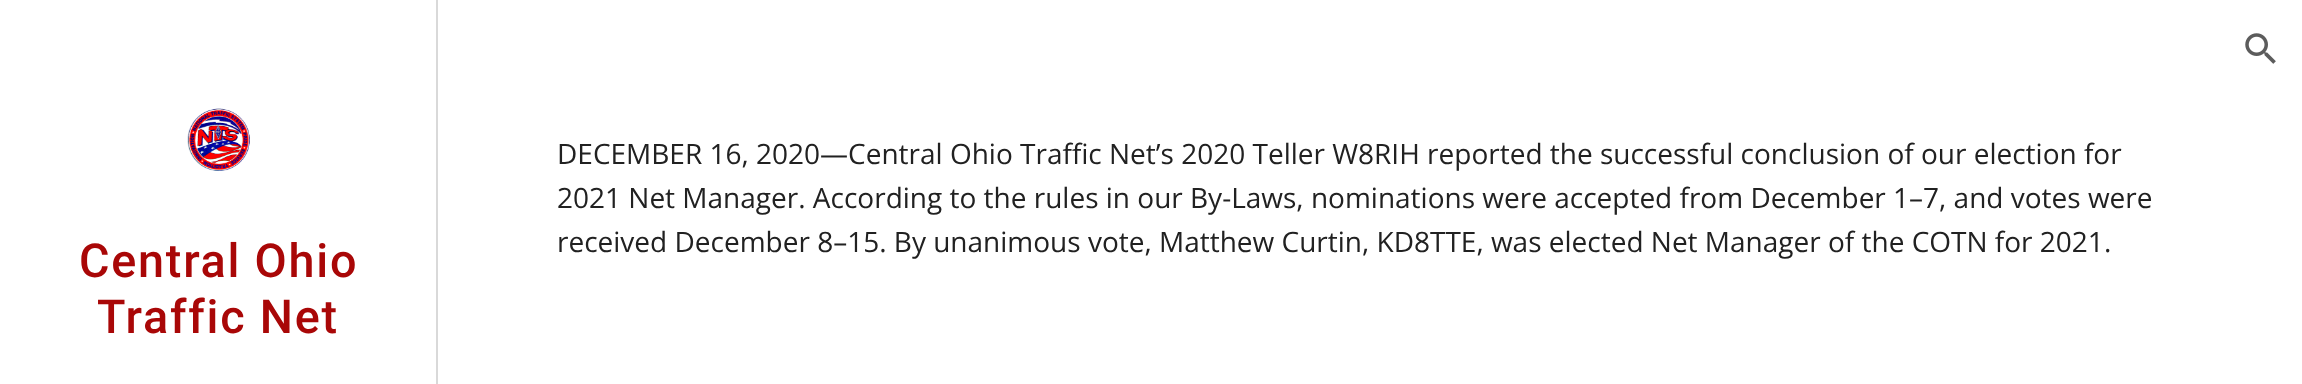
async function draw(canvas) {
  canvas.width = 2302;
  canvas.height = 384;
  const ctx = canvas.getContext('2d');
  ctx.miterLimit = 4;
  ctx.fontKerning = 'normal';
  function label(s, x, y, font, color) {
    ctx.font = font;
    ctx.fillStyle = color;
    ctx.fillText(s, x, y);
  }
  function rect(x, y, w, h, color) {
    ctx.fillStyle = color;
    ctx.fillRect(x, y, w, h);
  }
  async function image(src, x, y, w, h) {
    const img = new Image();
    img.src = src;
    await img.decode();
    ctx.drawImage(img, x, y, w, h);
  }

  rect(0, 0, 2302, 384, '#fff');
  label('DECEMBER 16, 2020—Central Ohio Traffic Net’s 2020 Teller W8RIH reported the successful conclusion of our election for', 557, 164, '28px Open Sans', '#212121');
  label('2021 Net Manager. According to the rules in our By-Laws, nominations were accepted from December 1–7, and votes were', 557, 208, '28px Open Sans', '#212121');
  label('received December 8–15. By unanimous vote, Matthew Curtin, KD8TTE, was elected Net Manager of the COTN for 2021.', 557, 252, '28px Open Sans', '#212121');
  await image('assets/img1.png', 2245, 33, 31, 31);
  rect(436, 0, 2, 384, '#d9d9d9');
  await image('assets/img2.png', 187, 108, 63, 64);
  ctx.letterSpacing = '1.75px';
  label('Central Ohio', 79, 277, '500 46.75px Roboto', '#a90707');
  label('Traffic Net', 97, 333, '500 46.75px Roboto', '#a90707');
}

draw(document.querySelector('canvas'));
